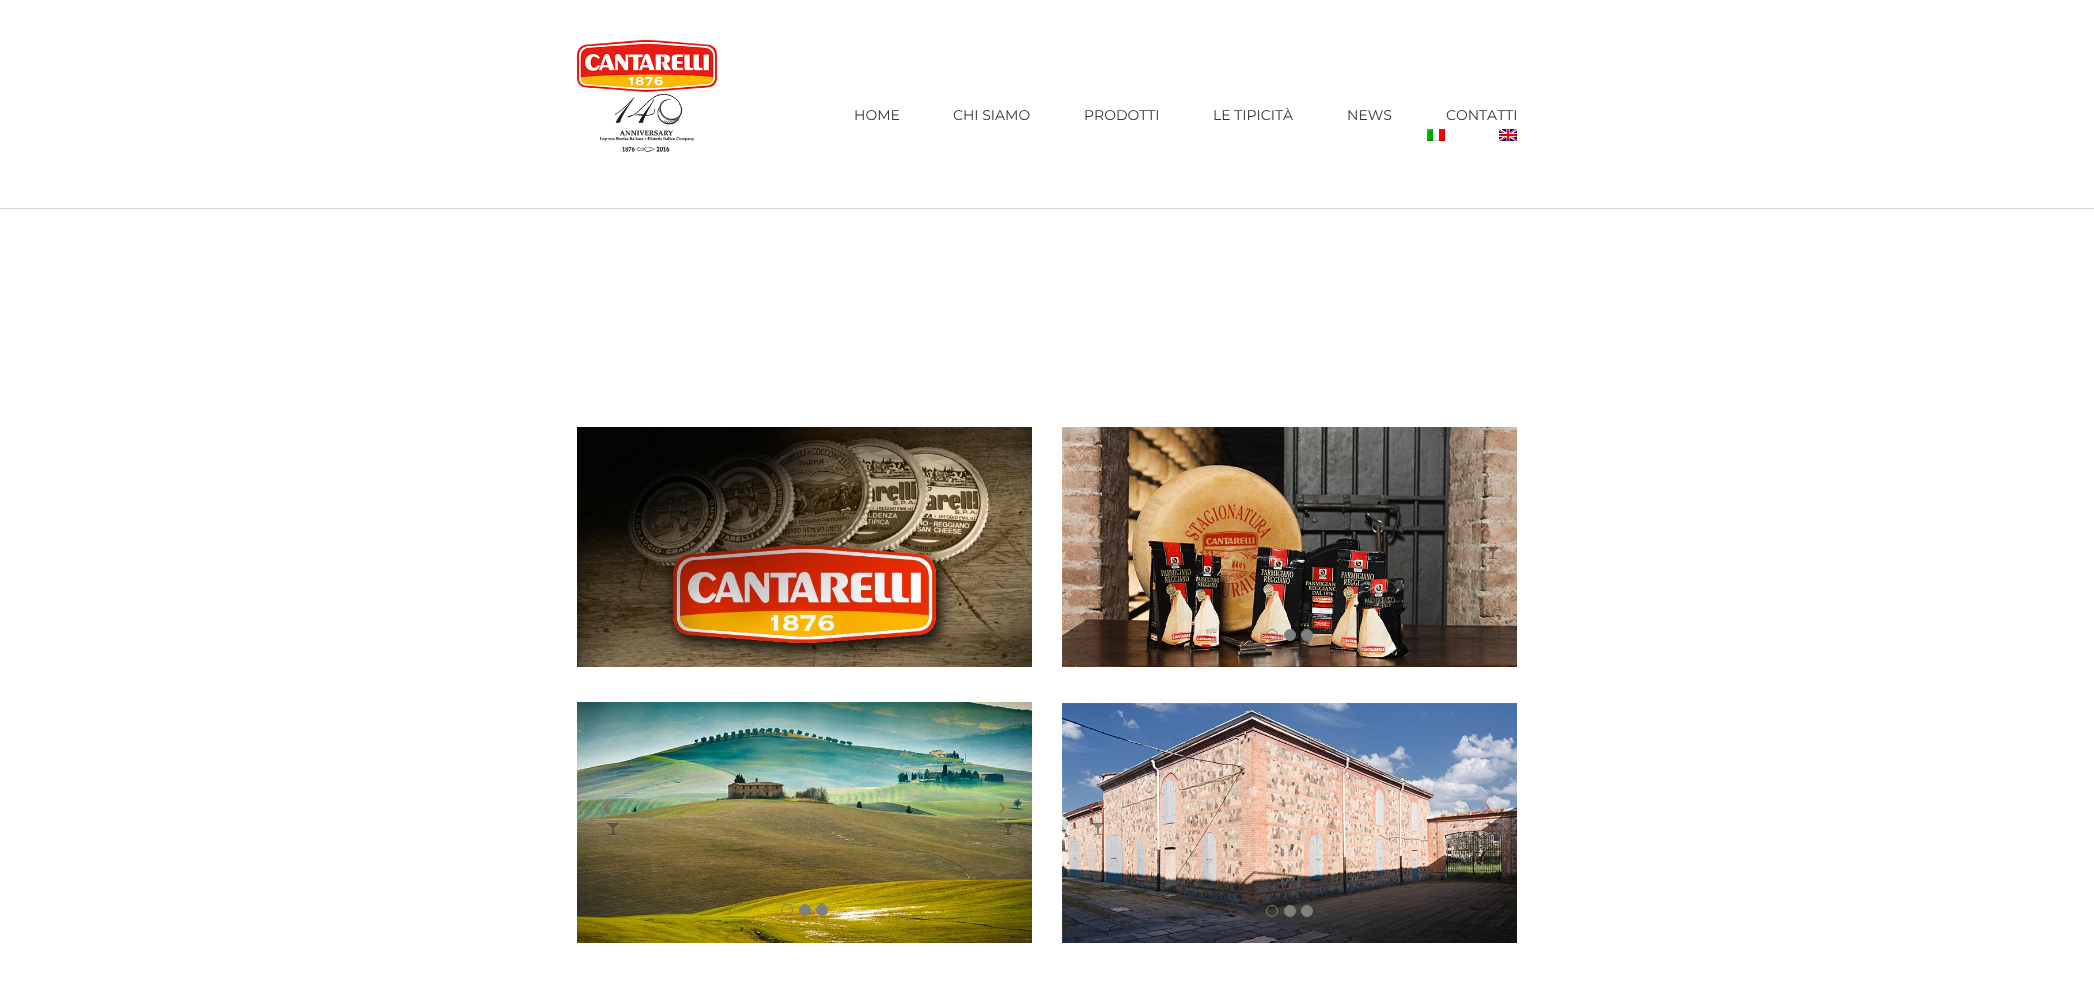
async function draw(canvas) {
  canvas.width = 2094;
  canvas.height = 988;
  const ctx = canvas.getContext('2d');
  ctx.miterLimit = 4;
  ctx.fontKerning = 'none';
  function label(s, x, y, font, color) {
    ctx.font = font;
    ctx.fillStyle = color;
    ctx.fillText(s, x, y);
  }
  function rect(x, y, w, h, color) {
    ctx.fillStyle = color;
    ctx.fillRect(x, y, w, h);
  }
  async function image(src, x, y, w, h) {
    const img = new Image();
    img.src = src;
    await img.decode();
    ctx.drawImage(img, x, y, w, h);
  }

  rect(0, 0, 2094, 988, '#fff');
  rect(0, 208, 2094, 1, '#d3d3d3');
  await image('assets/img1.png', 577, 40, 140, 112);
  label('HOME', 854, 120, '14px Montserrat', '#353534');
  label('CHI SIAMO', 953, 120, '14px Montserrat', '#353534');
  label('PRODOTTI', 1084, 120, '14px Montserrat', '#353534');
  label('LE TIPICITÀ', 1213, 120, '14px Montserrat', '#353534');
  label('NEWS', 1347, 120, '14px Montserrat', '#353534');
  label('CONTATTI', 1446, 120, '14px Montserrat', '#353534');
  await image('assets/img2.png', 1427, 129, 18, 12);
  await image('assets/img3.png', 1499, 129, 18, 12);
  await image('assets/img4.png', 577, 427, 455, 240);
  await image('assets/img5.png', 577, 702, 455, 241);
  await image('assets/img6.png', 607, 823, 12, 13);
  label('‹', 602, 815, '30px Liberation Serif', '#8d6753');
  await image('assets/img7.png', 1002, 823, 12, 13);
  label('›', 997, 815, '30px Liberation Serif', '#9c6e49');
  ctx.beginPath();
  ctx.arc(787, 910, 5.5, 0, 2 * Math.PI);
  ctx.strokeStyle = '#808080';
  ctx.stroke();
  ctx.fillStyle = '#808080';
  ctx.beginPath();
  ctx.arc(805, 910, 5.5, 0, 2 * Math.PI);
  ctx.fill();
  ctx.stroke();
  ctx.beginPath();
  ctx.arc(822, 910, 5.5, 0, 2 * Math.PI);
  ctx.fill();
  ctx.stroke();
  await image('assets/img8.png', 1062, 427, 455, 240);
  await image('assets/img9.png', 1092, 547, 12, 13);
  label('‹', 1087, 539, '30px Liberation Serif', '#b67061');
  await image('assets/img10.png', 1487, 547, 12, 13);
  label('›', 1482, 539, '30px Liberation Serif', '#a96454');
  ctx.beginPath();
  ctx.arc(1272, 635, 5.5, 0, 2 * Math.PI);
  ctx.stroke();
  ctx.fillStyle = '#808080';
  ctx.beginPath();
  ctx.arc(1290, 635, 5.5, 0, 2 * Math.PI);
  ctx.fill();
  ctx.stroke();
  ctx.beginPath();
  ctx.arc(1307, 635, 5.5, 0, 2 * Math.PI);
  ctx.fill();
  ctx.stroke();
  await image('assets/img11.png', 1062, 703, 455, 240);
  await image('assets/img12.png', 1092, 823, 12, 13);
  label('‹', 1087, 815, '30px Liberation Serif', '#8a4944');
  await image('assets/img13.png', 1487, 823, 12, 13);
  label('›', 1482, 815, '30px Liberation Serif', '#ae7473');
  ctx.beginPath();
  ctx.arc(1272, 911, 5.5, 0, 2 * Math.PI);
  ctx.stroke();
  ctx.fillStyle = '#808080';
  ctx.beginPath();
  ctx.arc(1290, 911, 5.5, 0, 2 * Math.PI);
  ctx.fill();
  ctx.stroke();
  ctx.beginPath();
  ctx.arc(1307, 911, 5.5, 0, 2 * Math.PI);
  ctx.fill();
  ctx.stroke();
}

draw(document.querySelector('canvas'));
